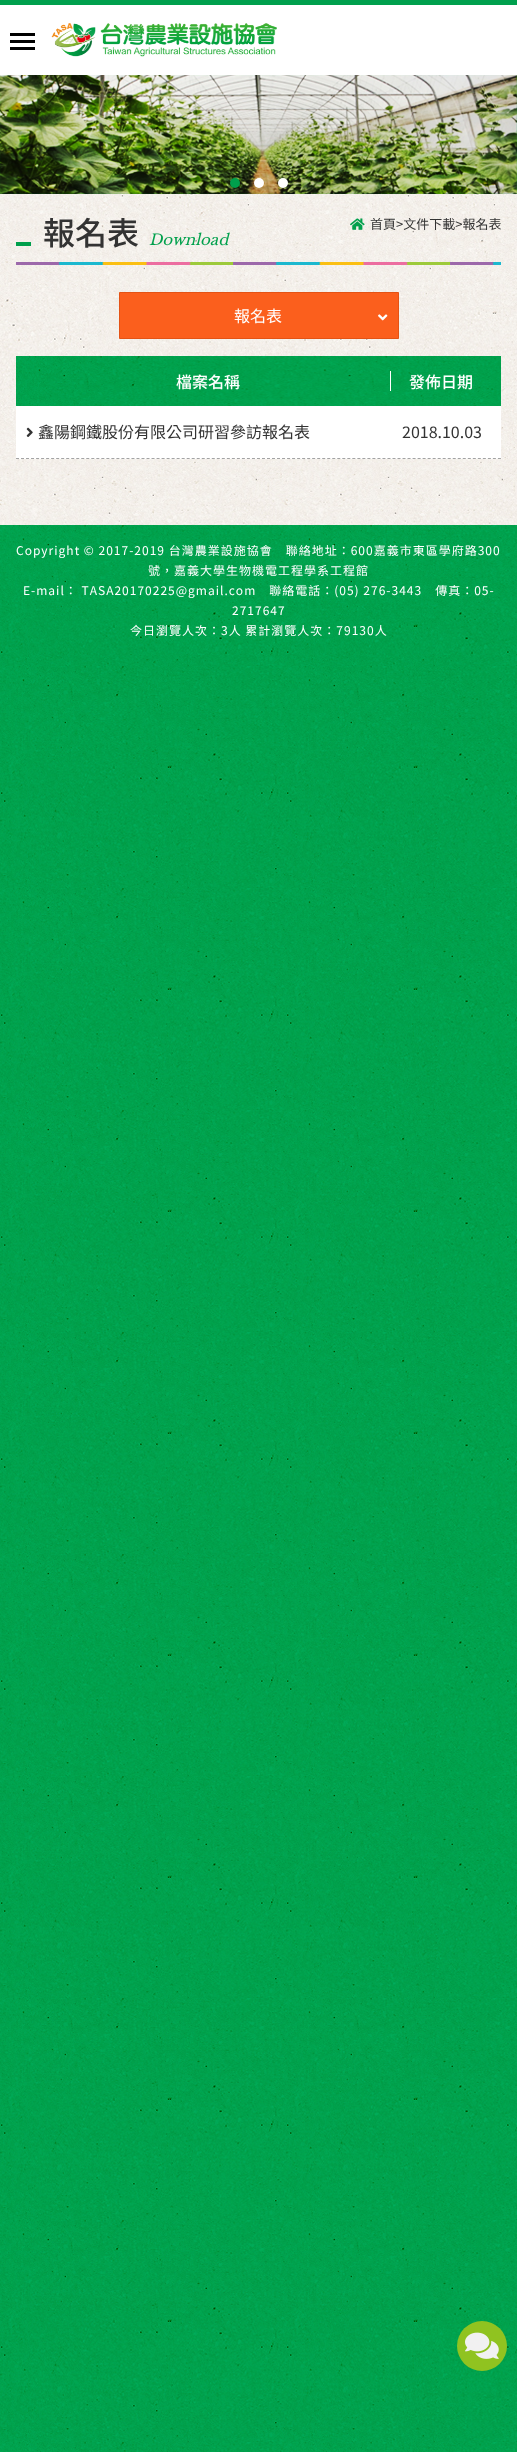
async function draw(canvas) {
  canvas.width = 517;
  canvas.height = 2452;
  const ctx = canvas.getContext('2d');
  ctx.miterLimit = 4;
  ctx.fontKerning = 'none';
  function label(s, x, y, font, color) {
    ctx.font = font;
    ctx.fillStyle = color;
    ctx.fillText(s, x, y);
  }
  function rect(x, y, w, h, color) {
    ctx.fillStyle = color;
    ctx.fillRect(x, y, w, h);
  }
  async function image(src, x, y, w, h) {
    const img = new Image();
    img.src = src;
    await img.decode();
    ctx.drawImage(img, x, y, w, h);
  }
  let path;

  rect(0, 0, 517, 2452, '#fff');
  await image('assets/img1.png', 0, 75, 517, 2377);
  await image('assets/img3.png', 0, 75, 517, 119);
  ctx.fillStyle = '#707070';
  ctx.filter = 'blur(0.5px)';
  ctx.beginPath();
  ctx.rect(0, 0, 517, 75);
  ctx.fill();
  ctx.filter = 'none';
  rect(0, 5, 517, 70, '#fff');
  rect(0, 0, 517, 5, '#00a04d');
  rect(10, 40, 25, 3, '#000');
  rect(10, 33, 25, 3, '#000');
  rect(10, 47, 25, 3, '#000');
  await image('assets/img2.png', 51, 23, 226, 34);
  ctx.fillStyle = '#009f4c';
  ctx.beginPath();
  ctx.arc(235, 183, 5, 0, 2 * Math.PI);
  ctx.fill();
  ctx.fillStyle = '#fff';
  ctx.beginPath();
  ctx.arc(259, 183, 5, 0, 2 * Math.PI);
  ctx.fill();
  ctx.beginPath();
  ctx.arc(283, 183, 5, 0, 2 * Math.PI);
  ctx.fill();
  await image('assets/img4.png', 0, 194, 517, 331);
  label('報名表', 43, 245, '500 32px Noto Sans TC', '#333');
  await image('assets/img5.png', 350, 218, 15, 12);
  label('首頁>文件下載>報名表', 370, 229, '13px Noto Sans TC', '#333');
  rect(16, 242, 15, 4, '#009f4c');
  label('Download', 149, 245, 'italic 15px Libre Baskerville', '#01a04c');
  await image('assets/img6.png', 16, 262, 485, 3);
  ctx.fillStyle = '#fb5f1d';
  ctx.beginPath();
  ctx.rect(119.5, 292.5, 279, 46);
  ctx.fill();
  ctx.strokeStyle = '#e45315';
  ctx.stroke();
  label('報名表', 234, 322, '16px Noto Sans TC', '#fff');
  await image('assets/img7.png', 378, 314, 10, 7);
  await image('assets/img8.png', 16, 356, 485, 50);
  label('檔案名稱', 176, 388, '500 16px Noto Sans TC', '#fff');
  rect(390, 371, 1, 20, '#fff');
  label('發佈日期', 409, 388, '500 16px Noto Sans TC', '#fff');
  rect(16, 406, 485, 53, '#fff');
  path = new Path2D('M16 458.5H501');
  ctx.strokeStyle = '#a3a3a3';
  ctx.setLineDash([3, 2.02]);
  ctx.stroke(path);
  await image('assets/img9.png', 26, 427, 7, 10);
  label('鑫陽鋼鐵股份有限公司研習參訪報名表', 38, 438, '16px Noto Sans TC', '#333');
  label('2018.10.03', 402, 438, '16px Noto Sans TC', '#333');
  await image('assets/img10.png', 0, 525, 517, 130);
  ctx.letterSpacing = '1px';
  label('Copyright © 2017-2019 台灣農業設施協會　聯絡地址：600嘉義市東區學府路300', 16, 555, '12px Noto Sans TC', '#fff');
  label('號，嘉義大學生物機電工程學系工程館', 148, 575, '12px Noto Sans TC', '#fff');
  label('E-mail： TASA20170225@gmail.com　聯絡電話：(05) 276-3443　傳真：05-', 23, 595, '12px Noto Sans TC', '#fff');
  label('2717647', 232, 615, '12px Noto Sans TC', '#fff');
  label('今日瀏覽人次：3人 累計瀏覽人次：79130人', 130, 635, '12px Noto Sans TC', '#fff');
  ctx.fillStyle = '#90c320';
  ctx.beginPath();
  ctx.arc(482, 2346, 25, 0, 2 * Math.PI);
  ctx.fill();
  await image('assets/img11.png', 465, 2332, 34, 27);
}

draw(document.querySelector('canvas'));
